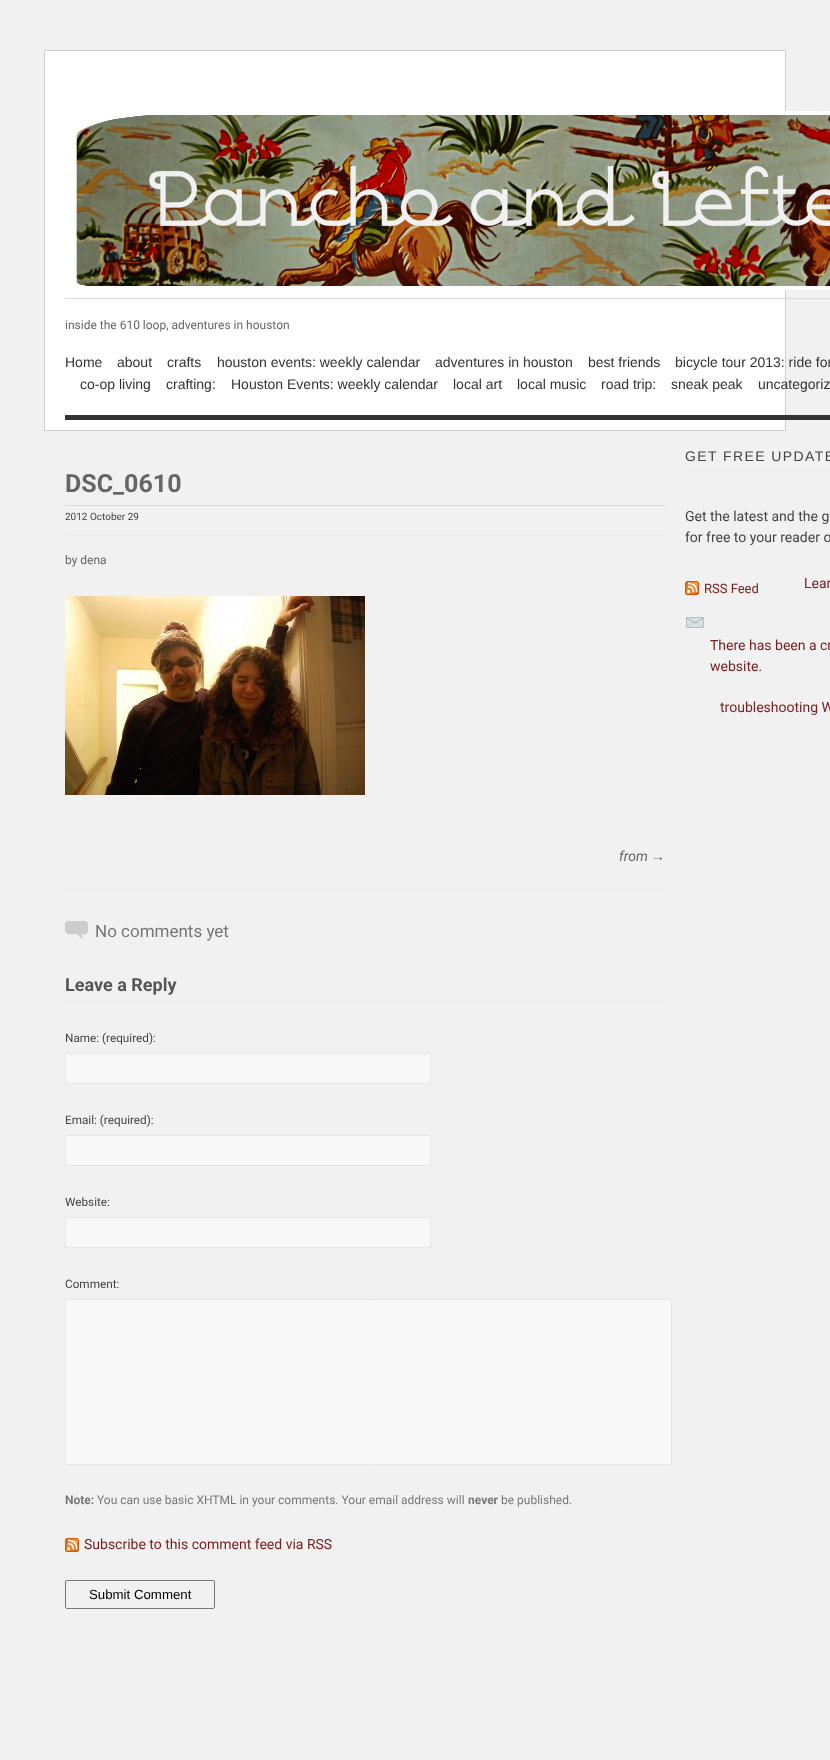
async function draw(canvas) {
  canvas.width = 830;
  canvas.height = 1760;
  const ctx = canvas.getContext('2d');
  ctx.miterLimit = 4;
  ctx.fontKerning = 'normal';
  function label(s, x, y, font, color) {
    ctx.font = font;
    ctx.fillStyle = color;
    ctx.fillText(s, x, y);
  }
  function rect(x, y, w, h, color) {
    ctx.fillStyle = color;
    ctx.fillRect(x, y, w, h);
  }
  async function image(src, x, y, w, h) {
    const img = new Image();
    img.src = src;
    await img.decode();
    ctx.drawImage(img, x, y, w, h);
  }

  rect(0, 0, 830, 1760, '#f1f1f1');
  ctx.fillStyle = '#fff';
  ctx.beginPath();
  ctx.rect(44.5, 50.5, 741, 380);
  ctx.fill();
  ctx.strokeStyle = '#ccd0d4';
  ctx.stroke();
  rect(65, 415, 765, 5, '#333');
  await image('assets/img1.png', 76, 111, 754, 179);
  rect(65, 298, 765, 1, '#dadada');
  label('inside the 610 loop, adventures in houston', 65, 329, '12px Roboto', '#666');
  label('Home', 65, 367, '14px Liberation Sans', '#333');
  label('about', 117, 367, '14px Liberation Sans', '#333');
  label('crafts', 167, 367, '14px Liberation Sans', '#333');
  label('houston events: weekly calendar', 217, 367, '14px Liberation Sans', '#333');
  label('adventures in houston', 435, 367, '14px Liberation Sans', '#333');
  label('best friends', 588, 367, '14px Liberation Sans', '#333');
  label('bicycle tour 2013: ride for', 675, 367, '14px Liberation Sans', '#333');
  label('co-op living', 80, 389, '14px Liberation Sans', '#333');
  label('crafting:', 166, 389, '14px Liberation Sans', '#333');
  label('Houston Events: weekly calendar', 231, 389, '14px Liberation Sans', '#333');
  label('local art', 453, 389, '14px Liberation Sans', '#333');
  label('local music', 517, 389, '14px Liberation Sans', '#333');
  label('road trip:', 601, 389, '14px Liberation Sans', '#333');
  label('sneak peak', 671, 389, '14px Liberation Sans', '#333');
  label('uncategoriz', 758, 389, '14px Liberation Sans', '#333');
  rect(65, 535, 600, 1, '#eee');
  rect(65, 538, 600, 1, '#eee');
  rect(65, 505, 600, 1, '#dadada');
  label('DSC_0610', 65, 492, 'bold 25px Roboto', '#666');
  label('2012 October 29', 65, 520, '10px Roboto', '#444');
  label('by dena', 65, 564, '12px Roboto', '#666');
  await image('assets/img2.png', 65, 596, 300, 199);
  rect(65, 889, 600, 1, '#eee');
  label('from', 619, 861, 'italic 14px Roboto', '#666');
  label('→', 651, 861, 'italic 14px Liberation Sans', '#666');
  await image('assets/img3.png', 65, 921, 23, 19);
  label('No comments yet', 95, 937, '17px Roboto', '#777');
  rect(65, 1001, 600, 1, '#eee');
  label('Leave a Reply', 65, 991, 'bold 18px Roboto', '#555');
  label('Name: (required):', 65, 1042, '11.75px Roboto', '#444');
  ctx.fillStyle = '#f8f8f8';
  ctx.beginPath();
  ctx.rect(65.5, 1053.5, 365, 30);
  ctx.fill();
  ctx.strokeStyle = '#e6e6e6';
  ctx.stroke();
  label('Email: (required):', 65, 1124, '11.75px Roboto', '#444');
  ctx.fillStyle = '#f8f8f8';
  ctx.beginPath();
  ctx.rect(65.5, 1135.5, 365, 30);
  ctx.fill();
  ctx.stroke();
  label('Website:', 65, 1206, '11.75px Roboto', '#444');
  ctx.fillStyle = '#f8f8f8';
  ctx.beginPath();
  ctx.rect(65.5, 1217.5, 365, 30);
  ctx.fill();
  ctx.stroke();
  label('Comment:', 65, 1288, '11.75px Roboto', '#444');
  ctx.fillStyle = '#f8f8f8';
  ctx.beginPath();
  ctx.rect(65.5, 1299.5, 606, 165);
  ctx.fill();
  ctx.stroke();
  label('Note:', 65, 1504, 'bold 12px Roboto', '#777');
  label('You can use basic XHTML in your comments. Your email address will', 97, 1504, '12px Roboto', '#777');
  label('never', 468, 1504, 'bold 12px Roboto', '#777');
  label('be published.', 501, 1504, '12px Roboto', '#777');
  await image('assets/img4.png', 65, 1538, 14, 14);
  label('Subscribe to this comment feed via RSS', 84, 1549, '14px Roboto', '#772124');
  ctx.beginPath();
  ctx.roundRect(65.5, 1580.5, 149, 28, 1.5);
  ctx.strokeStyle = '#767676';
  ctx.stroke();
  label('Submit Comment', 89, 1599, '13.25px Liberation Sans', '#000');
  rect(685, 470, 145, 1, '#eee');
  ctx.letterSpacing = '1.4px';
  label('GET FREE UPDATE', 685, 461, '14px Liberation Sans', '#444');
  ctx.letterSpacing = '0px';
  label('Get the latest and the g', 685, 521, '14px Roboto', '#444');
  label('for free to your reader o', 685, 542, '14px Roboto', '#444');
  label('Lear', 804, 588, '14px Roboto', '#772124');
  label('troubleshooting W', 720, 712, '14px Roboto', '#772124');
  await image('assets/img5.png', 686, 617, 18, 11);
  label('There has been a cr', 710, 650, '14px Roboto', '#772124');
  label('website.', 710, 671, '14px Roboto', '#772124');
  await image('assets/img6.png', 685, 581, 14, 14);
  label('RSS Feed', 704, 593, '13px Roboto', '#772124');
}

draw(document.querySelector('canvas'));
